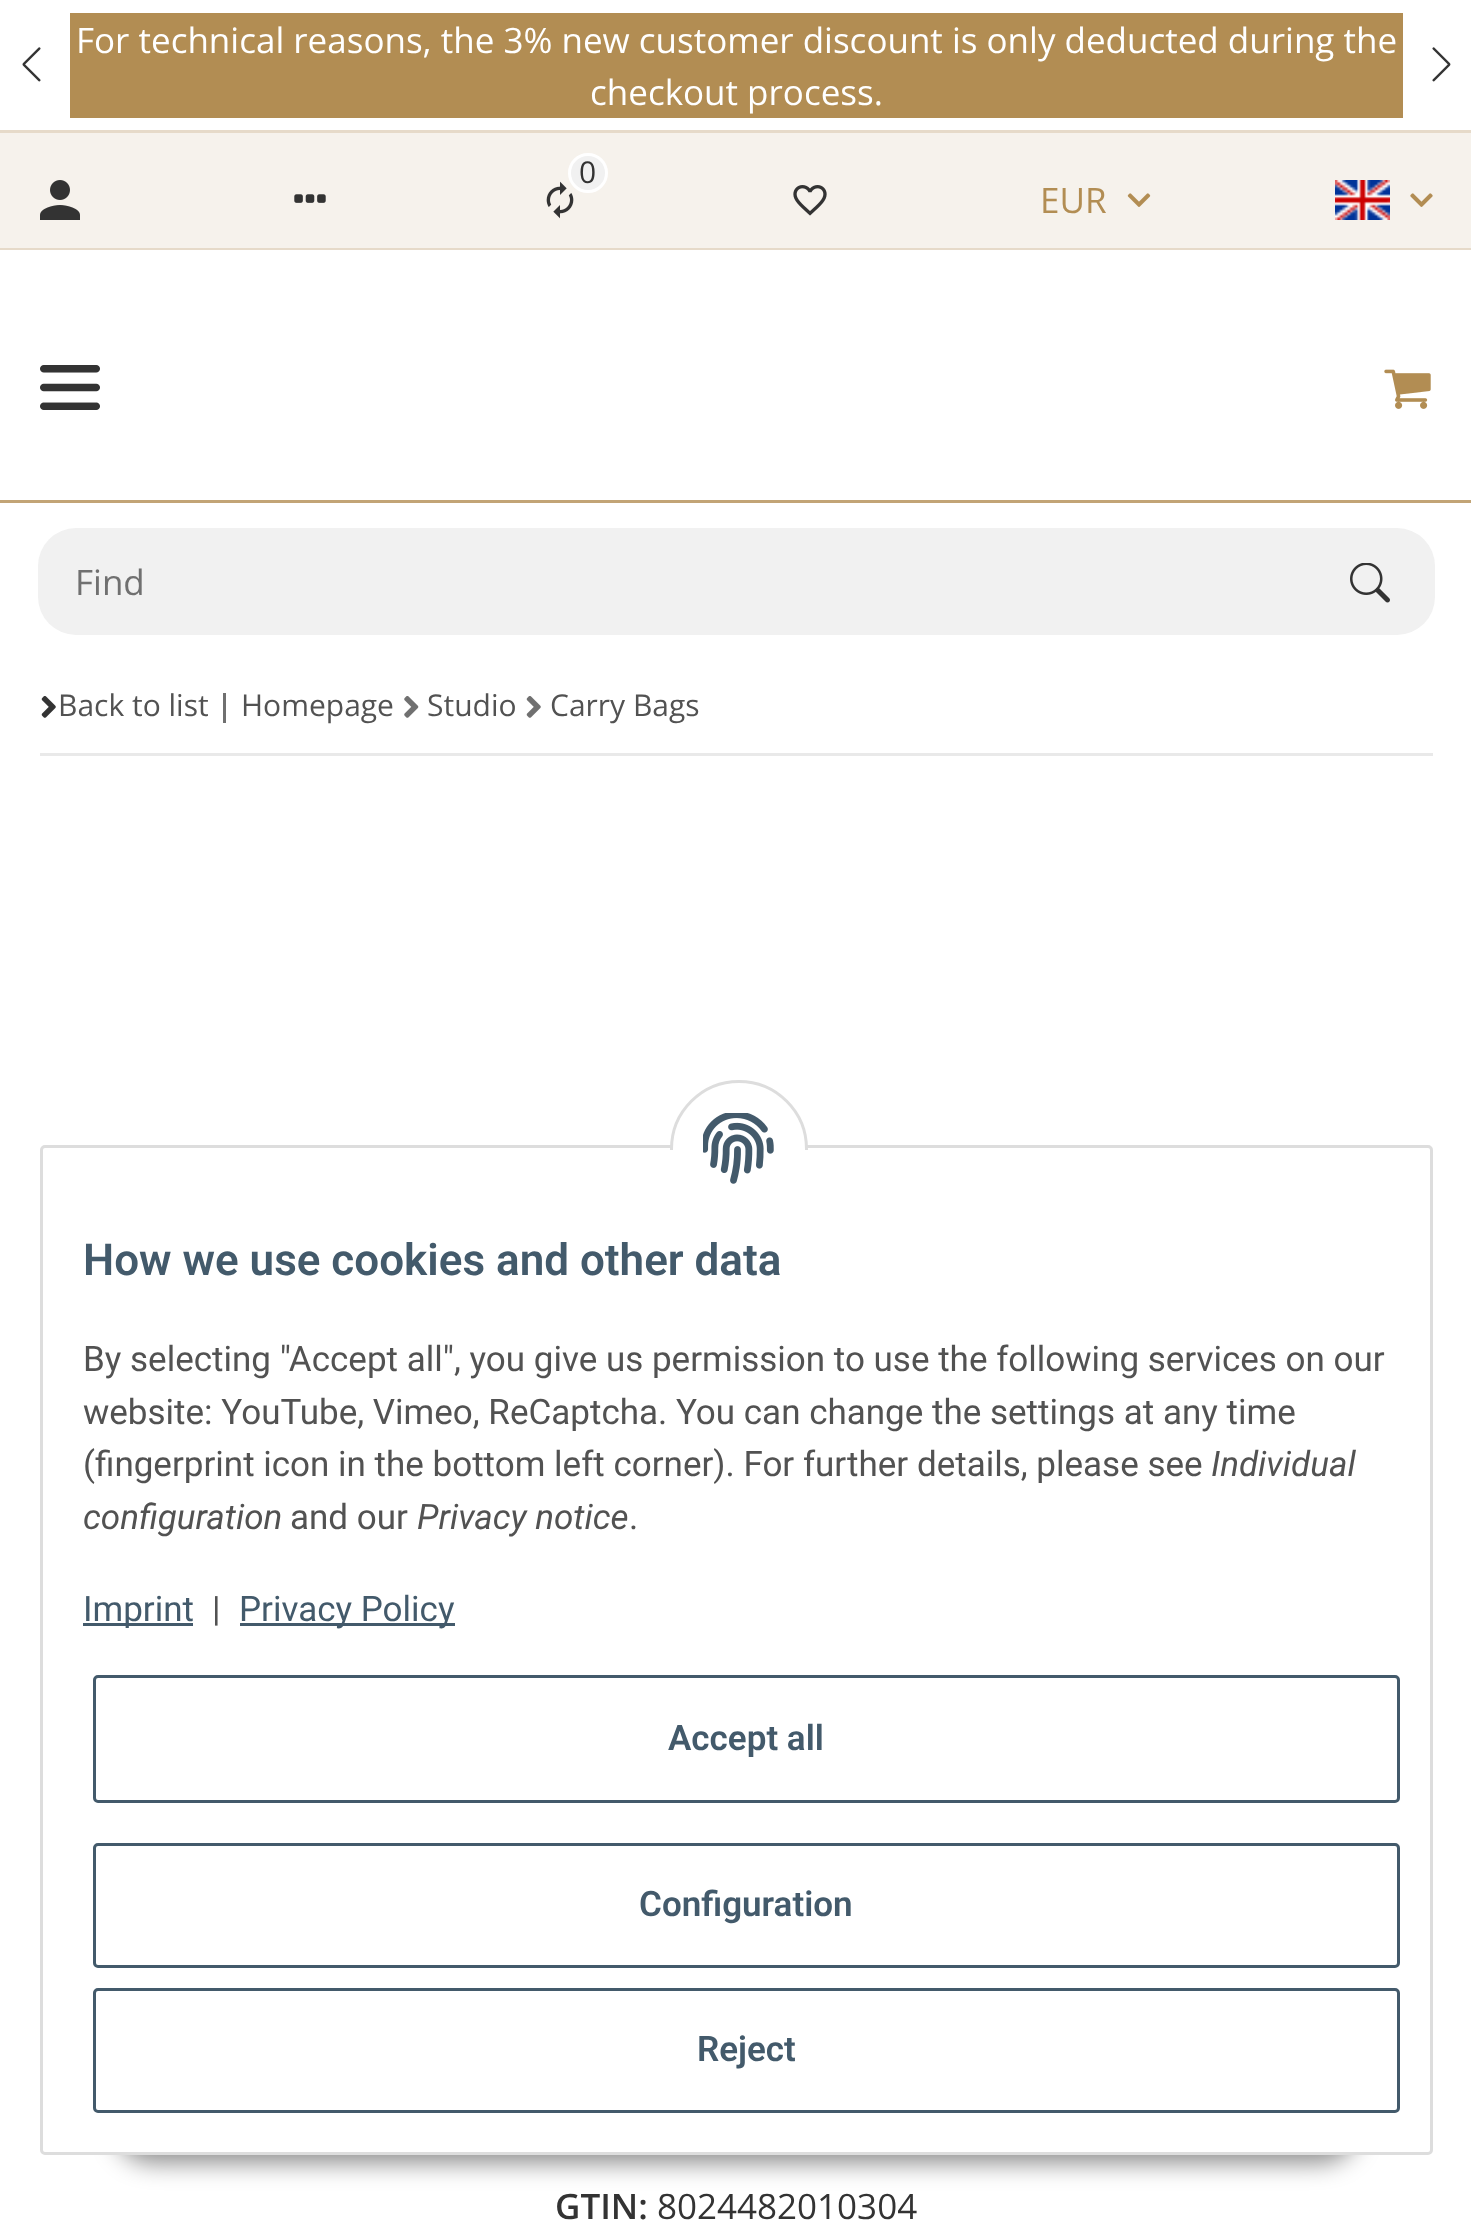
async function draw(canvas) {
  canvas.width = 1471;
  canvas.height = 2233;
  const ctx = canvas.getContext('2d');
  ctx.miterLimit = 4;
  ctx.fontKerning = 'normal';
  function label(s, x, y, font, color) {
    ctx.font = font;
    ctx.fillStyle = color;
    ctx.fillText(s, x, y);
  }
  function rect(x, y, w, h, color) {
    ctx.fillStyle = color;
    ctx.fillRect(x, y, w, h);
  }
  function roundedRect(x, y, w, h, r, color) {
    ctx.fillStyle = color;
    ctx.beginPath();
    ctx.roundRect(x, y, w, h, r);
    ctx.fill();
  }
  async function image(src, x, y, w, h) {
    const img = new Image();
    img.src = src;
    await img.decode();
    ctx.drawImage(img, x, y, w, h);
  }

  rect(0, 0, 1471, 2233, '#fff');
  rect(70, 13, 1333, 105, '#b28d53');
  label('For technical reasons, the 3% new customer discount is only deducted during the', 76, 53, '35px Open Sans', '#fff');
  label('checkout process.', 590, 105, '35px Open Sans', '#fff');
  await image('assets/img1.png', 22, 47, 19, 35);
  await image('assets/img2.png', 1432, 47, 19, 35);
  rect(0, 133, 1471, 115, '#f6f2ec');
  rect(0, 130, 1471, 3, '#e6dac9');
  rect(0, 248, 1471, 2, '#e6dac9');
  await image('assets/img3.png', 546, 181, 28, 38);
  ctx.fillStyle = '#f1f1f1';
  ctx.beginPath();
  ctx.arc(588, 173, 18.5, 0, 2 * Math.PI);
  ctx.fill();
  ctx.strokeStyle = '#fff';
  ctx.lineWidth = 3;
  ctx.stroke();
  label('0', 579, 183, '30px Open Sans', '#333');
  await image('assets/img4.png', 40, 180, 40, 40);
  await image('assets/img5.png', 294, 194, 32, 9);
  await image('assets/img6.png', 793, 185, 34, 31);
  label('EUR', 1040, 213, '35px Open Sans', '#b28d53');
  await image('assets/img7.png', 1127, 193, 24, 14);
  await image('assets/img8.png', 1335, 180, 55, 40);
  await image('assets/img9.png', 1410, 193, 23, 14);
  rect(0, 500, 1471, 3, '#c2a476');
  await image('assets/img10.png', 40, 365, 60, 45);
  await image('assets/img11.png', 1384, 369, 47, 40);
  roundedRect(38, 528, 1397, 107, 38, '#f1f1f1');
  label('Find', 75, 595, '35px Open Sans', '#707070');
  await image('assets/img12.png', 1350, 563, 40, 40);
  await image('assets/img13.png', 41, 696, 15, 22);
  label('Back to list', 58, 716, '30px Open Sans', '#525252');
  rect(223, 693, 3, 30, '#707070');
  label('Homepage', 241, 716, '30px Open Sans', '#525252');
  await image('assets/img14.png', 404, 696, 15, 22);
  label('Studio', 427, 716, '30px Open Sans', '#525252');
  await image('assets/img15.png', 526, 696, 15, 22);
  label('Carry Bags', 550, 716, '30px Open Sans', '#525252');
  rect(40, 753, 1393, 3, '#e9e9e9');
  label('GTIN:', 555, 2219, '600 35px Open Sans', '#333');
  label('8024482010304', 657, 2219, '35px Open Sans', '#333');
  ctx.fillStyle = '#00000073';
  ctx.filter = 'blur(12.5px)';
  ctx.beginPath();
  ctx.roundRect(113, 2083, 1247, 80, 40);
  ctx.fill();
  ctx.filter = 'none';
  ctx.fillStyle = '#fff';
  ctx.beginPath();
  ctx.roundRect(41.5, 1146.5, 1390, 1007, 3.5);
  ctx.fill();
  ctx.strokeStyle = '#ddd';
  ctx.stroke();
  ctx.beginPath();
  ctx.arc(739, 1149, 67.5, 0, 2 * Math.PI);
  ctx.fill();
  ctx.stroke();
  rect(670, 1150, 138, 68, '#fff');
  await image('assets/img16.png', 703, 1113, 71, 71);
  label('How we use cookies and other data', 83, 1275, '600 44px Roboto', '#435a6b');
  label('By selecting "Accept all", you give us permission to use the following services on our', 83, 1371, '35px Roboto', '#525252');
  label('website: YouTube, Vimeo, ReCaptcha. You can change the settings at any time', 83, 1424, '35px Roboto', '#525252');
  label('(fingerprint icon in the bottom left corner). For further details, please see', 83, 1476, '35px Roboto', '#525252');
  label('Individual', 1211, 1476, 'italic 35px Roboto', '#525252');
  label('configuration', 83, 1529, 'italic 35px Roboto', '#525252');
  label('and our', 290, 1529, '35px Roboto', '#525252');
  label('Privacy notice', 417, 1529, 'italic 35px Roboto', '#525252');
  label('.', 629, 1529, '35px Roboto', '#525252');
  rect(83, 1623, 110, 3, '#435a6b');
  label('Imprint', 83, 1621, '35px Roboto', '#435a6b');
  label('|', 212, 1621, '35px Roboto', '#525252');
  rect(240, 1623, 215, 3, '#435a6b');
  label('Privacy Policy', 239, 1621, '35px Roboto', '#435a6b');
  ctx.beginPath();
  ctx.roundRect(94.5, 1676.5, 1304, 125, 3.5);
  ctx.strokeStyle = '#435a6b';
  ctx.stroke();
  label('Accept all', 668, 1750, '600 35px Roboto', '#435a6b');
  ctx.beginPath();
  ctx.roundRect(94.5, 1844.5, 1304, 122, 3.5);
  ctx.stroke();
  label('Configuration', 639, 1916, '600 35px Roboto', '#435a6b');
  ctx.beginPath();
  ctx.roundRect(94.5, 1989.5, 1304, 122, 3.5);
  ctx.stroke();
  label('Reject', 697, 2061, '600 35px Roboto', '#435a6b');
}

draw(document.querySelector('canvas'));
